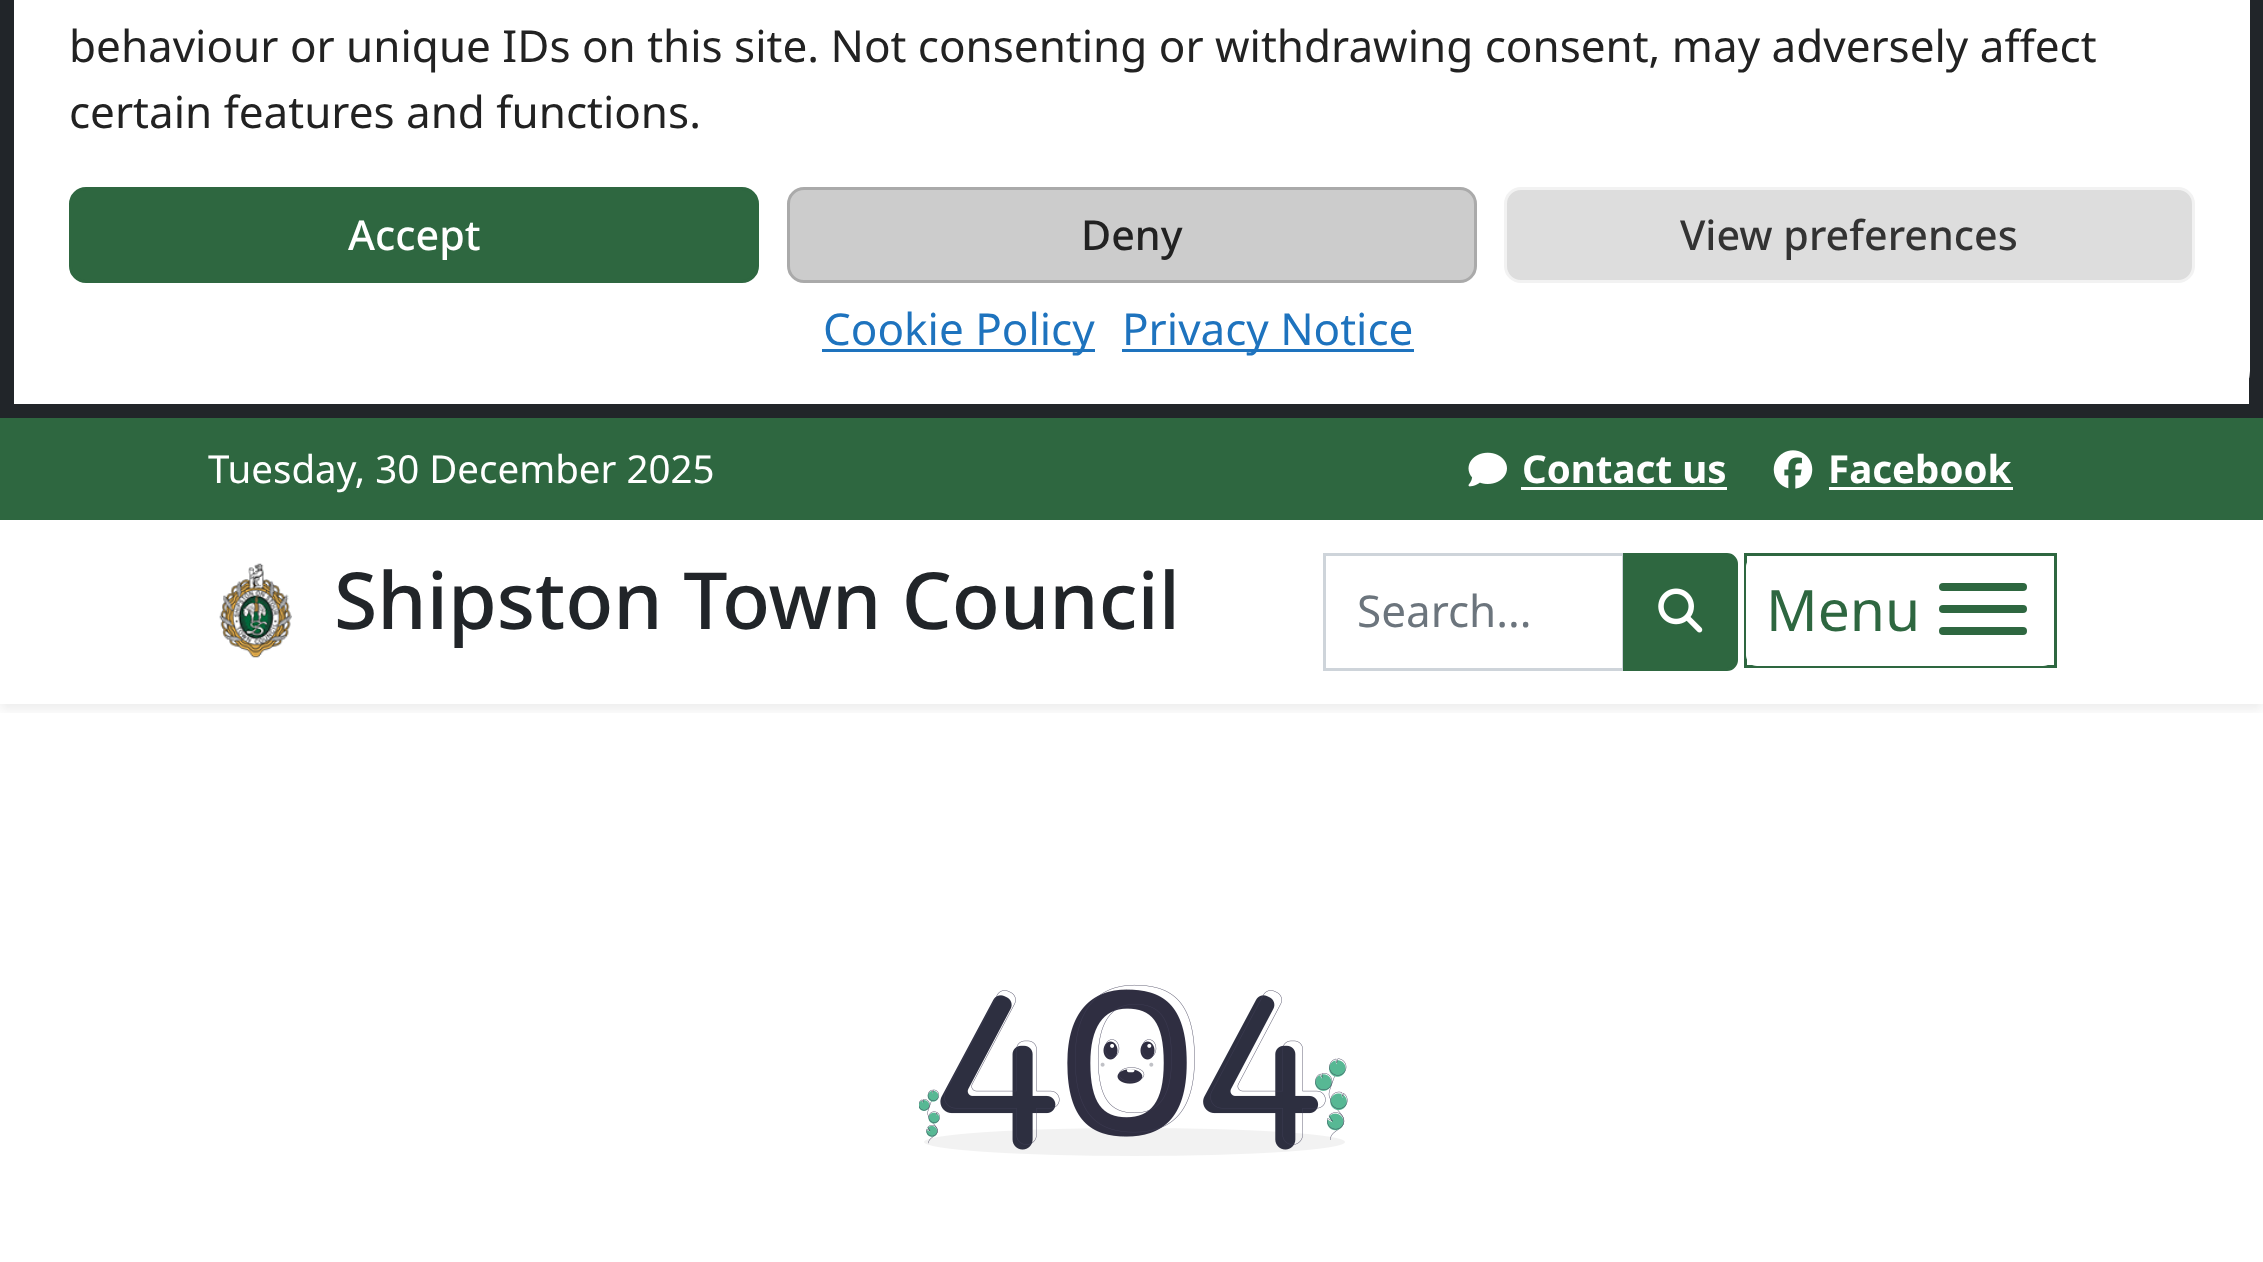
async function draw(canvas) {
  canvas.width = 2263;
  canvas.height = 1262;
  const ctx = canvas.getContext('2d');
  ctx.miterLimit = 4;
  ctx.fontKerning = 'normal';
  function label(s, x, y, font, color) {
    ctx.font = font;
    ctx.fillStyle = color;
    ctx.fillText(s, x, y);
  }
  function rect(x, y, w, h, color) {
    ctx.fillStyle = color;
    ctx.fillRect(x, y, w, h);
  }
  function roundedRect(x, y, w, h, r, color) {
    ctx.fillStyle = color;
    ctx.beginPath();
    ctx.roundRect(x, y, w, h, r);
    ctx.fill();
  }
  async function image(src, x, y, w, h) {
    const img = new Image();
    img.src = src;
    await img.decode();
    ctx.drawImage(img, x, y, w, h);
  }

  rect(0, 0, 2263, 1262, '#fff');
  ctx.strokeStyle = '#212529';
  ctx.lineWidth = 14;
  ctx.strokeRect(7, -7, 2249, 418);
  roundedRect(14, -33, 2236, 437, 33, '#fff');
  label('behaviour or unique IDs on this site. Not consenting or withdrawing consent, may adversely affect', 69, 62, '44px Noto Sans', '#222');
  label('certain features and functions.', 69, 128, '44px Noto Sans', '#222');
  ctx.fillStyle = '#2e6740';
  ctx.beginPath();
  ctx.roundRect(70.5, 188.5, 687, 93, 15.5);
  ctx.fill();
  ctx.strokeStyle = '#2e6740';
  ctx.lineWidth = 3;
  ctx.stroke();
  label('Accept', 348, 250, '500 41.25px Noto Sans', '#fff');
  ctx.fillStyle = '#ccc';
  ctx.beginPath();
  ctx.roundRect(788.5, 188.5, 687, 93, 15.5);
  ctx.fill();
  ctx.strokeStyle = '#aaa';
  ctx.stroke();
  label('Deny', 1081, 250, '500 41.25px Noto Sans', '#222');
  ctx.fillStyle = '#ddd';
  ctx.beginPath();
  ctx.roundRect(1505.5, 188.5, 688, 93, 15.5);
  ctx.fill();
  ctx.strokeStyle = '#f2f2f2';
  ctx.stroke();
  label('View preferences', 1680, 250, '500 41.25px Noto Sans', '#333');
  rect(822, 349, 273, 3, '#1e73be');
  label('Cookie Policy', 823, 345, '44px Noto Sans', '#1e73be');
  rect(1122, 349, 292, 3, '#1e73be');
  label('Privacy Notice', 1122, 345, '44px Noto Sans', '#1e73be');
  ctx.save();
  ctx.beginPath();
  ctx.rect(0, 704, 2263, 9);
  ctx.clip();
  ctx.fillStyle = '#00000012';
  ctx.filter = 'blur(5.5px)';
  ctx.beginPath();
  ctx.rect(0, 424, 2263, 286);
  ctx.fill();
  ctx.filter = 'none';
  ctx.restore();
  rect(0, 418, 2263, 102, '#2e6740');
  label('Tuesday, 30 December 2025', 208, 483, '38.5px Noto Sans', '#fff');
  await image('assets/img1.png', 1468, 452, 39, 35);
  label('Contact us', 1522, 483, 'bold 38.5px Noto Sans', '#fff');
  rect(1521, 487, 206, 3, '#fff');
  await image('assets/img2.png', 1773, 450, 40, 39);
  label('Facebook', 1828, 483, 'bold 38.5px Noto Sans', '#fff');
  rect(1829, 487, 184, 3, '#fff');
  await image('assets/img3.png', 219, 563, 73, 95);
  label('Shipston Town Council', 334, 629, '500 78.75px Noto Sans', '#212529');
  ctx.strokeStyle = '#ced4da';
  ctx.strokeRect(1324.5, 554.5, 299, 115);
  label('Search...', 1357, 627, '44px Noto Sans', '#6c757d');
  ctx.fillStyle = '#2e6740';
  ctx.beginPath();
  ctx.roundRect(1624.5, 554.5, 112, 115, [0, 9.5, 9.5, 0]);
  ctx.fill();
  ctx.strokeStyle = '#2e6740';
  ctx.stroke();
  await image('assets/img4.png', 1658, 588, 45, 45);
  ctx.strokeRect(1745.5, 554.5, 310, 112);
  roundedRect(1746, 556, 308, 110, 11, '#fff');
  label('Menu', 1766, 631, '57px Noto Sans', '#2e6740');
  roundedRect(1939, 583, 88, 8, 4, '#2e6740');
  roundedRect(1939, 605, 88, 8, 4, '#2e6740');
  roundedRect(1939, 627, 88, 8, 4, '#2e6740');
  await image('assets/img5.png', 919, 984, 429, 172);
}

draw(document.querySelector('canvas'));
